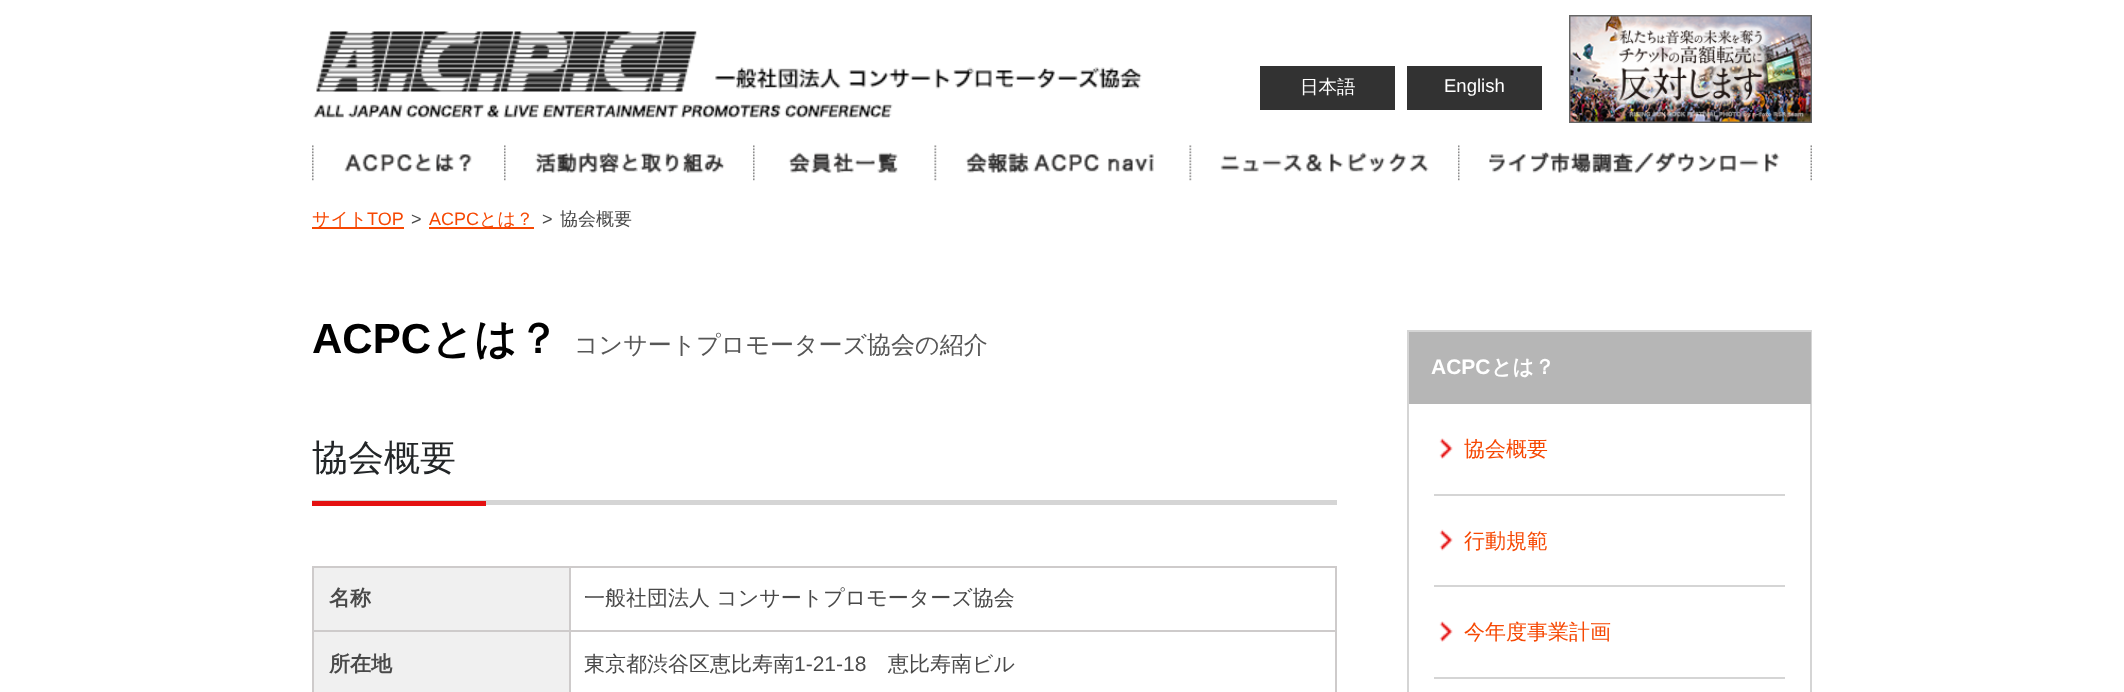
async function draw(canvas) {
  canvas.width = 2124;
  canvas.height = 692;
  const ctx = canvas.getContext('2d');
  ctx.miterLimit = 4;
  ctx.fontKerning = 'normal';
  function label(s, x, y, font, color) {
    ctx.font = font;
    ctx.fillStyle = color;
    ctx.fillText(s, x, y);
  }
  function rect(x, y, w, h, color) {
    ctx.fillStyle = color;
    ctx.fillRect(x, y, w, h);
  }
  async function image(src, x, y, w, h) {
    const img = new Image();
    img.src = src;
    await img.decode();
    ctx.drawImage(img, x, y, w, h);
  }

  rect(0, 0, 2124, 692, '#fff');
  await image('assets/img1.png', 313, 31, 829, 87);
  await image('assets/img2.png', 312, 145, 160, 36);
  await image('assets/img3.png', 504, 145, 221, 36);
  await image('assets/img4.png', 753, 145, 145, 36);
  await image('assets/img5.png', 934, 145, 220, 36);
  await image('assets/img6.png', 1189, 145, 240, 36);
  await image('assets/img7.png', 1458, 145, 354, 36);
  rect(1260, 66, 135, 44, '#323232');
  label('日本語', 1300, 93, '500 18.5px WenQuanYi Zen Hei', '#fff');
  rect(1407, 66, 135, 44, '#323232');
  label('English', 1444, 92, '18.5px Liberation Sans', '#fff');
  ctx.strokeStyle = '#666';
  ctx.lineWidth = 2;
  ctx.strokeRect(1570, 16, 241, 106);
  await image('assets/img8.png', 1570, 16, 241, 106);
  rect(312, 227, 92, 2, '#f64803');
  label('サイト', 312, 225, '500 18px WenQuanYi Zen Hei', '#f64803');
  label('TOP', 367, 225, '18px Liberation Sans', '#f64803');
  label('>', 411, 225, '18px Liberation Sans', '#494949');
  label('ACPC', 429, 225, '18px Liberation Sans', '#f64803');
  rect(429, 227, 105, 2, '#f64803');
  label('とは？', 479, 225, '500 18px WenQuanYi Zen Hei', '#f64803');
  label('>', 542, 225, '18px Liberation Sans', '#494949');
  label('協会概要', 560, 225, '500 18px WenQuanYi Zen Hei', '#494949');
  label('ACPC', 312, 353, 'bold 42px Liberation Sans', '#000');
  label('とは？', 431, 353, 'bold 42px WenQuanYi Zen Hei', '#000');
  label('コンサートプロモーターズ協会の紹介', 574, 353, '500 24px WenQuanYi Zen Hei', '#565656');
  rect(312, 500, 1025, 5, '#d5d5d5');
  rect(312, 501, 174, 5, '#e41111');
  label('協会概要', 312, 470, '500 36px WenQuanYi Zen Hei', '#232628');
  rect(314, 568, 255, 62, '#f0f0f0');
  rect(569, 566, 768, 2, '#cecbcb');
  rect(569, 630, 768, 2, '#cecbcb');
  rect(569, 630, 2, 62, '#cecbcb');
  rect(312, 630, 258, 2, '#cecbcb');
  rect(569, 566, 2, 66, '#cecbcb');
  rect(312, 566, 258, 2, '#cecbcb');
  rect(312, 630, 2, 62, '#cecbcb');
  rect(312, 566, 2, 66, '#cecbcb');
  label('名称', 329, 605, 'bold 21px WenQuanYi Zen Hei', '#494949');
  rect(1335, 630, 2, 62, '#cecbcb');
  rect(1335, 566, 2, 66, '#cecbcb');
  label('一般社団法人 コンサートプロモーターズ協会', 584, 605, '500 21px WenQuanYi Zen Hei', '#494949');
  rect(314, 632, 255, 60, '#f0f0f0');
  label('所在地', 329, 671, 'bold 21px WenQuanYi Zen Hei', '#494949');
  label('東京都渋谷区恵比寿南', 584, 671, '500 21px WenQuanYi Zen Hei', '#494949');
  label('1-21-18', 794, 671, '21px Liberation Sans', '#494949');
  label('恵比寿南ビル', 888, 671, '500 21px WenQuanYi Zen Hei', '#494949');
  ctx.strokeStyle = '#d5d5d5';
  ctx.strokeRect(1408, 331, 403, 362);
  rect(1409, 332, 402, 72, '#b6b6b6');
  label('ACPC', 1431, 374, 'bold 21px Liberation Sans', '#fff');
  label('とは？', 1491, 374, 'bold 21px WenQuanYi Zen Hei', '#fff');
  rect(1434, 494, 351, 2, '#d5d5d5');
  await image('assets/img9.png', 1439, 438, 14, 21);
  label('協会概要', 1464, 456, '500 21px WenQuanYi Zen Hei', '#f64803');
  rect(1434, 585, 351, 2, '#d5d5d5');
  await image('assets/img10.png', 1439, 529, 14, 22);
  label('行動規範', 1464, 548, '500 21px WenQuanYi Zen Hei', '#f64803');
  rect(1434, 677, 351, 2, '#d5d5d5');
  await image('assets/img9.png', 1439, 621, 14, 21);
  label('今年度事業計画', 1464, 639, '500 21px WenQuanYi Zen Hei', '#f64803');
}

draw(document.querySelector('canvas'));
